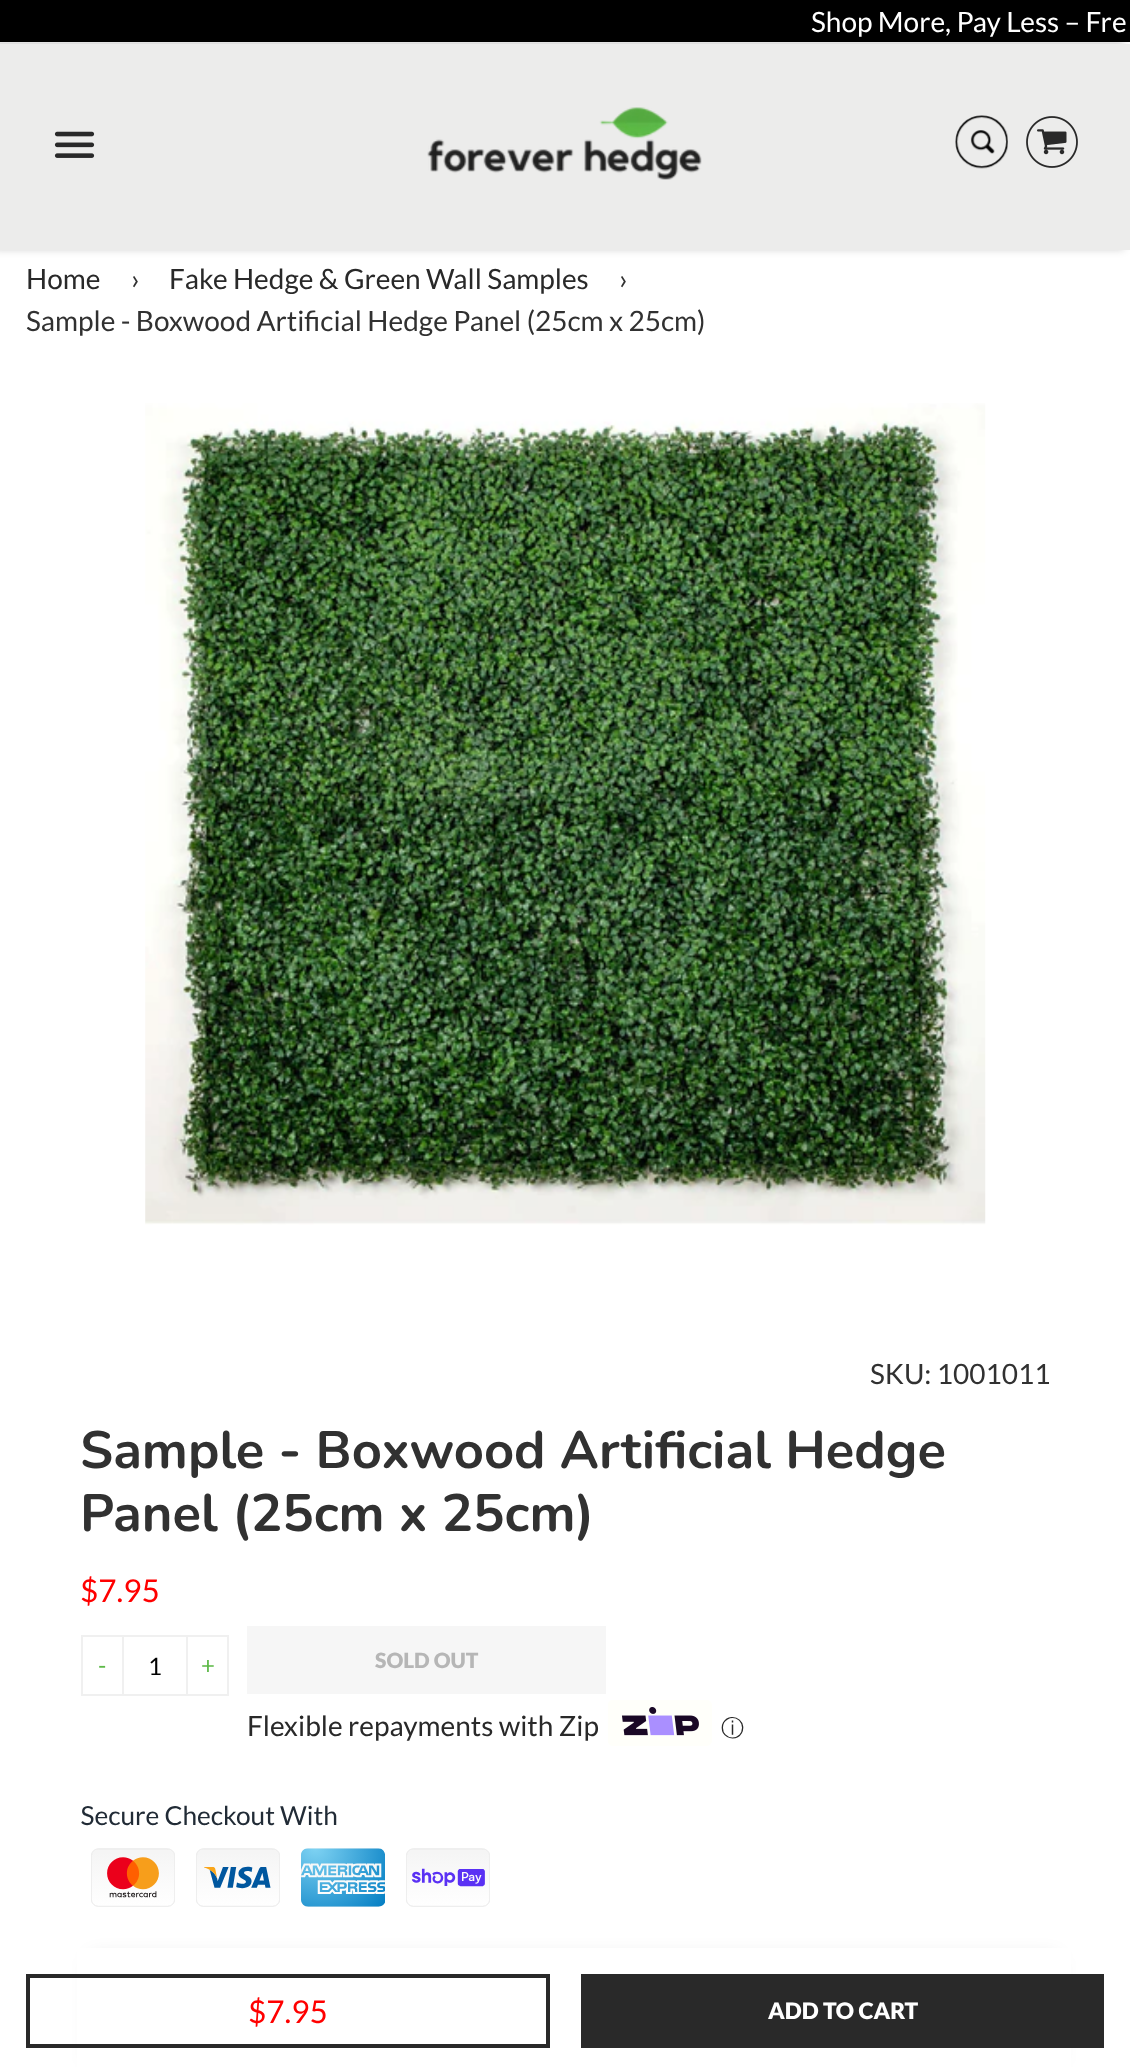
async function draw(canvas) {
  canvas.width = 1130;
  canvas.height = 2067;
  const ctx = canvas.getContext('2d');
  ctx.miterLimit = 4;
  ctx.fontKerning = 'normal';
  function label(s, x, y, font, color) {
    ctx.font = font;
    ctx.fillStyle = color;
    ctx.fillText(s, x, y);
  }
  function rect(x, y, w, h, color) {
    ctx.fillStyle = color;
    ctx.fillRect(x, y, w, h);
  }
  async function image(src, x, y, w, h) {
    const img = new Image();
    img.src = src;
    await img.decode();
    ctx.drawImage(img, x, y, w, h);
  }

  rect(0, 0, 1130, 2067, '#fff');
  rect(0, 0, 1130, 42, '#000');
  label('Shop More, Pay Less – Fre', 811, 32, '28px Lato', '#fff');
  ctx.fillStyle = '#00000033';
  ctx.filter = 'blur(4.5px)';
  ctx.beginPath();
  ctx.rect(-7, 42, 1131, 207);
  ctx.fill();
  ctx.filter = 'none';
  rect(0, 44, 1130, 206, '#ececeb');
  await image('assets/img1.png', 54, 131, 41, 27);
  await image('assets/img2.png', 427, 107, 275, 73);
  await image('assets/img3.png', 955, 115, 53, 54);
  await image('assets/img4.png', 1026, 116, 52, 52);
  label('Home', 26, 289, '28px Lato', '#292929');
  label('›', 131, 289, '28px Lato', '#313131');
  label('Fake Hedge & Green Wall Samples', 169, 289, '28px Lato', '#292929');
  label('›', 619, 289, '28px Lato', '#313131');
  label('Sample - Boxwood Artificial Hedge Panel (25cm x 25cm)', 26, 331, '28px Lato', '#313131');
  await image('assets/img5.png', 145, 403, 841, 822);
  label('SKU: 1001011', 870, 1384, '28px Lato', '#313131');
  label('Sample - Boxwood Artificial Hedge', 80, 1468, 'bold 52.5px Nunito', '#313131');
  label('Panel (25cm x 25cm)', 80, 1531, 'bold 52.5px Nunito', '#313131');
  label('$7.95', 80, 1602, '31.5px Lato', '#f00');
  rect(121, 1635, 70, 2, '#f0f0f0');
  rect(121, 1694, 70, 2, '#f0f0f0');
  ctx.strokeStyle = '#f0f0f0';
  ctx.lineWidth = 2;
  ctx.strokeRect(82, 1636, 41, 59);
  label('-', 98, 1674, '24px Lato', '#5db947');
  label('1', 148, 1675, '24px Lato', '#000');
  ctx.strokeRect(187, 1636, 41, 59);
  label('+', 201, 1674, '24px Lato', '#5db947');
  rect(247, 1626, 359, 68, '#f6f6f6');
  label('SOLD OUT', 375, 1668, '900 21px Lato', '#b6b6b6');
  label('Flexible repayments with Zip', 247, 1736, '28px Lato', '#292929');
  await image('assets/img6.png', 608, 1700, 104, 46);
  label('ⓘ', 721, 1736, '500 23px WenQuanYi Zen Hei', '#292929');
  await image('assets/img7.png', 81, 1805, 409, 102);
  ctx.fillStyle = '#0000001a';
  ctx.filter = 'blur(9px)';
  ctx.beginPath();
  ctx.roundRect(89, 1955, 970, 112, 9);
  ctx.fill();
  ctx.filter = 'none';
  rect(77, 1948, 994, 119, '#fff');
  ctx.strokeStyle = '#292929';
  ctx.lineWidth = 4;
  ctx.strokeRect(28, 1976, 520, 70);
  label('$7.95', 248, 2023, '31.5px Lato', '#f00');
  rect(581, 1974, 523, 74, '#292929');
  label('ADD TO CART', 768, 2019, '900 22.75px Lato', '#fff');
}

draw(document.querySelector('canvas'));
